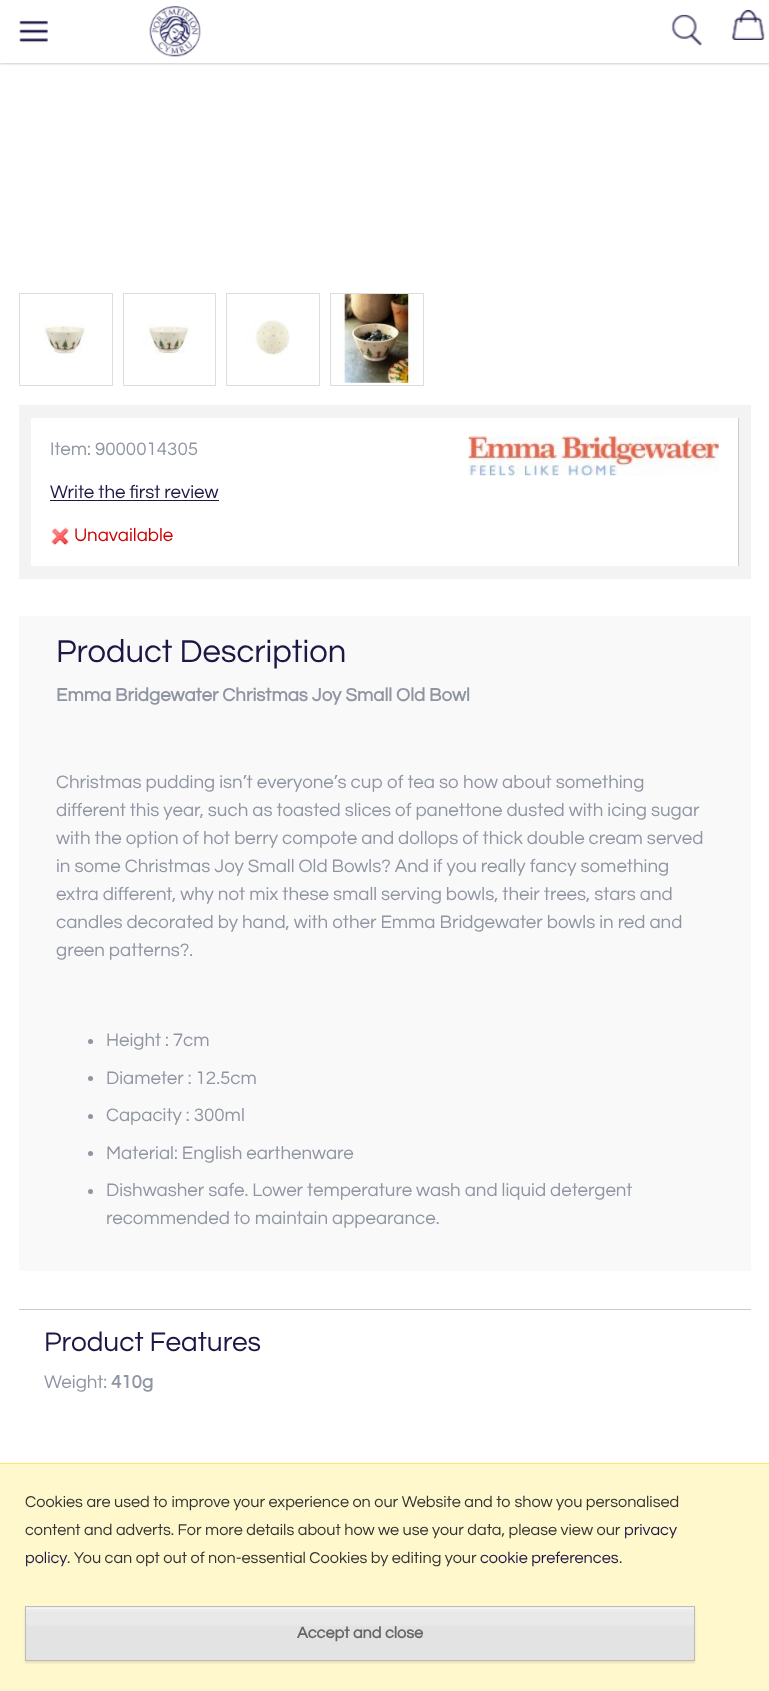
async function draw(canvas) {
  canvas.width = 769;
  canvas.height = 1691;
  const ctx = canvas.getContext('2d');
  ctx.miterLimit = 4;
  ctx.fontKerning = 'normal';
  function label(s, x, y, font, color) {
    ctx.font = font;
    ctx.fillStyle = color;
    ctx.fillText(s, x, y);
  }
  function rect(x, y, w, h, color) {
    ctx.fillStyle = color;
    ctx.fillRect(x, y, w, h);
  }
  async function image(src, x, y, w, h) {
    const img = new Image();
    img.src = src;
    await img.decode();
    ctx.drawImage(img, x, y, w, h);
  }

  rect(0, 0, 769, 1691, '#fff');
  ctx.fillStyle = '#00000033';
  ctx.filter = 'blur(1px)';
  ctx.beginPath();
  ctx.rect(0, 1, 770, 63);
  ctx.fill();
  ctx.filter = 'none';
  rect(0, 0, 769, 63, '#fff');
  await image('assets/img1.png', 19, 20, 29, 23);
  await image('assets/img2.png', 149, 6, 52, 51);
  await image('assets/img3.png', 671, 14, 31, 32);
  await image('assets/img4.png', 732, 10, 33, 30);
  ctx.strokeStyle = '#ddd';
  ctx.strokeRect(19.5, 293.5, 93, 92);
  await image('assets/img5.png', 37, 324, 50, 30);
  ctx.strokeRect(123.5, 293.5, 92, 92);
  await image('assets/img6.png', 141, 325, 50, 29);
  ctx.strokeRect(226.5, 293.5, 93, 92);
  await image('assets/img7.png', 245, 319, 45, 36);
  ctx.strokeRect(330.5, 293.5, 93, 92);
  await image('assets/img8.png', 340, 294, 76, 89);
  rect(19, 405, 732, 174, '#f3f3f3');
  rect(31, 418, 707, 148, '#fff');
  rect(738, 418, 1, 148, '#ccc');
  label('Item: 9000014305', 50, 455, '18.75px Questrial', '#8f95a2');
  await image('assets/img9.png', 468, 436, 251, 40);
  label('Write the first review', 50, 498, '18.75px Questrial', '#1f1646');
  rect(50, 500, 169, 1, '#1f1646');
  await image('assets/img10.png', 51, 527, 19, 19);
  label('Unavailable', 74, 541, '18.75px Questrial', '#c00');
  rect(19, 616, 732, 655, '#f9f9f9');
  label('Product Description', 56, 662, '32.75px Questrial', '#1f1646');
  label('Emma Bridgewater Christmas Joy Small Old Bowl', 56, 701, 'bold 18.75px Questrial', '#8f95a2');
  label('Christmas pudding isn’t everyone’s cup of tea so how about something', 56, 788, '18.75px Questrial', '#8f95a2');
  label('different this year, such as toasted slices of panettone dusted with icing sugar', 56, 816, '18.75px Questrial', '#8f95a2');
  label('with the option of hot berry compote and dollops of thick double cream served', 56, 844, '18.75px Questrial', '#8f95a2');
  label('in some Christmas Joy Small Old Bowls? And if you really fancy something', 56, 872, '18.75px Questrial', '#8f95a2');
  label('extra different, why not mix these small serving bowls, their trees, stars and', 56, 900, '18.75px Questrial', '#8f95a2');
  label('candles decorated by hand, with other Emma Bridgewater bowls in red and', 56, 928, '18.75px Questrial', '#8f95a2');
  label('green patterns?.', 56, 956, '18.75px Questrial', '#8f95a2');
  ctx.beginPath();
  ctx.arc(90.5, 1041.5, 2.5, 0, 2 * Math.PI);
  ctx.fill();
  label('Height : 7cm', 106, 1046, '18.75px Questrial', '#8f95a2');
  ctx.beginPath();
  ctx.arc(90.5, 1078.5, 2.5, 0, 2 * Math.PI);
  ctx.fill();
  label('Diameter : 12.5cm', 106, 1084, '18.75px Questrial', '#8f95a2');
  ctx.beginPath();
  ctx.arc(90.5, 1116.5, 2.5, 0, 2 * Math.PI);
  ctx.fill();
  label('Capacity : 300ml', 106, 1121, '18.75px Questrial', '#8f95a2');
  ctx.beginPath();
  ctx.arc(90.5, 1153.5, 2.5, 0, 2 * Math.PI);
  ctx.fill();
  label('Material: English earthenware', 106, 1159, '18.75px Questrial', '#8f95a2');
  ctx.beginPath();
  ctx.arc(90.5, 1191.5, 2.5, 0, 2 * Math.PI);
  ctx.fill();
  label('Dishwasher safe. Lower temperature wash and liquid detergent', 106, 1196, '18.75px Questrial', '#8f95a2');
  label('recommended to maintain appearance.', 106, 1224, '18.75px Questrial', '#8f95a2');
  rect(19, 1309, 732, 1, '#ccc');
  label('Product Features', 44, 1351, '28px Questrial', '#1f1646');
  label('Weight:', 44, 1388, '18.75px Questrial', '#8f95a2');
  label('410g', 111, 1388, 'bold 18.75px Questrial', '#8f95a2');
  rect(0, 1464, 769, 227, '#fff8cc');
  rect(0, 1463, 769, 1, '#ffe95c');
  label('Cookies are used to improve your experience on our Website and to show you personalised', 25, 1507, '16.25px Questrial', '#333');
  label('content and adverts. For more details about how we use your data, please view our', 25, 1535, '16.25px Questrial', '#333');
  label('privacy', 624, 1535, '16.25px Questrial', '#1f1646');
  label('policy', 25, 1563, '16.25px Questrial', '#1f1646');
  label('. You can opt out of non-essential Cookies by editing your', 67, 1563, '16.25px Questrial', '#333');
  label('cookie preferences', 480, 1563, '16.25px Questrial', '#1f1646');
  label('.', 619, 1563, '16.25px Questrial', '#333');
  ctx.fillStyle = '#0000001a';
  ctx.filter = 'blur(1px)';
  ctx.beginPath();
  ctx.rect(25, 1608, 670, 55);
  ctx.fill();
  ctx.filter = 'none';
  rect(26, 1607, 668, 53, '#e3e3e3');
  await image('assets/img11.png', 26, 1607, 668, 19);
  ctx.strokeStyle = '#bbb';
  ctx.strokeRect(25.5, 1606.5, 669, 54);
  label('Accept and close', 297, 1638, 'bold 16.25px Questrial', '#666');
}

draw(document.querySelector('canvas'));
